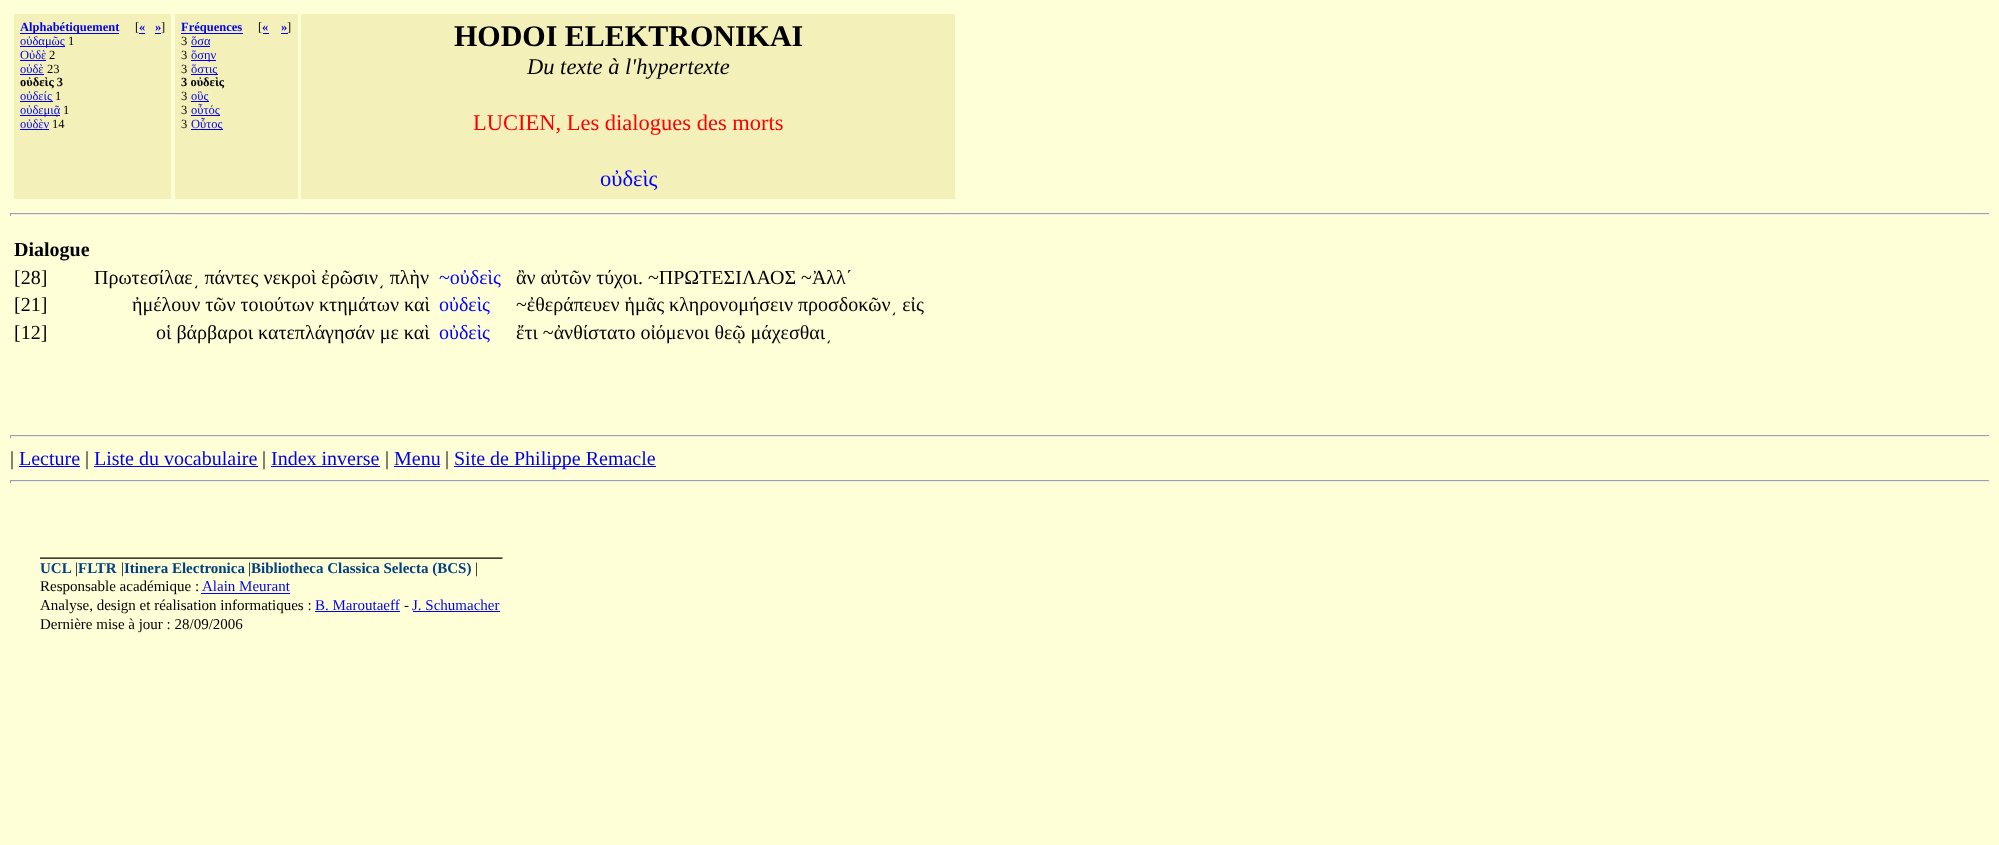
async function draw(canvas) {
  canvas.width = 1999;
  canvas.height = 845;
  const ctx = canvas.getContext('2d');
  ctx.miterLimit = 4;
  ctx.fontKerning = 'normal';
  function label(s, x, y, font, color) {
    ctx.font = font;
    ctx.fillStyle = color;
    ctx.fillText(s, x, y);
  }
  function rect(x, y, w, h, color) {
    ctx.fillStyle = color;
    ctx.fillRect(x, y, w, h);
  }
  async function image(src, x, y, w, h) {
    const img = new Image();
    img.src = src;
    await img.decode();
    ctx.drawImage(img, x, y, w, h);
  }

  rect(0, 0, 1999, 845, '#ffffd7');
  rect(14, 14, 157, 185, '#f3f0b9');
  rect(20, 33, 99, 1, '#00e');
  label('Alphabétiquement', 20, 31, 'bold 12.5px Liberation Serif', '#00e');
  label('[', 135, 31, '12.5px Liberation Serif', '#000');
  label('«', 139, 31, 'bold 12.5px Liberation Serif', '#00e');
  rect(139, 33, 6, 1, '#00e');
  label('»', 155, 31, 'bold 12.5px Liberation Serif', '#00e');
  rect(155, 33, 6, 1, '#00e');
  label(']', 161, 31, '12.5px Liberation Serif', '#000');
  rect(20, 46, 45, 1, '#00e');
  label('οὐδαμῶς', 20, 45, '12.5px Liberation Serif', '#00e');
  label('1', 68, 45, '12.5px Liberation Serif', '#000');
  label('Οὐδὲ', 20, 59, '12.5px Liberation Serif', '#00e');
  rect(20, 60, 26, 1, '#00e');
  label('2', 49, 59, '12.5px Liberation Serif', '#000');
  label('οὐδὲ', 20, 73, '12.5px Liberation Serif', '#00e');
  rect(20, 74, 24, 1, '#00e');
  label('23', 47, 73, '12.5px Liberation Serif', '#000');
  label('οὐδεὶς 3', 20, 86, 'bold 12.5px Liberation Serif', '#000');
  rect(20, 101, 33, 1, '#00e');
  label('οὐδείς', 20, 100, '12.5px Liberation Serif', '#00e');
  label('1', 55, 100, '12.5px Liberation Serif', '#000');
  rect(20, 115, 40, 1, '#00e');
  label('οὐδεμιᾷ', 20, 114, '12.5px Liberation Serif', '#00e');
  label('1', 63, 114, '12.5px Liberation Serif', '#000');
  label('οὐδὲν', 20, 128, '12.5px Liberation Serif', '#00e');
  rect(20, 129, 29, 1, '#00e');
  label('14', 52, 128, '12.5px Liberation Serif', '#000');
  rect(175, 14, 123, 185, '#f3f0b9');
  rect(181, 33, 62, 1, '#00e');
  label('Fréquences', 181, 31, 'bold 12.5px Liberation Serif', '#00e');
  label('[', 258, 31, '12.5px Liberation Serif', '#000');
  label('«', 262, 31, 'bold 12.5px Liberation Serif', '#00e');
  rect(263, 33, 6, 1, '#00e');
  label('»', 281, 31, 'bold 12.5px Liberation Serif', '#00e');
  rect(281, 33, 7, 1, '#00e');
  label(']', 287, 31, '12.5px Liberation Serif', '#000');
  label('3', 181, 45, '12.5px Liberation Serif', '#000');
  label('ὅσα', 191, 45, '12.5px Liberation Serif', '#00e');
  rect(191, 46, 19, 1, '#00e');
  label('3', 181, 59, '12.5px Liberation Serif', '#000');
  rect(191, 60, 25, 1, '#00e');
  label('ὅσην', 191, 59, '12.5px Liberation Serif', '#00e');
  label('3', 181, 73, '12.5px Liberation Serif', '#000');
  rect(191, 74, 27, 1, '#00e');
  label('ὅστις', 191, 73, '12.5px Liberation Serif', '#00e');
  label('3 οὐδεὶς', 181, 86, 'bold 12.5px Liberation Serif', '#000');
  label('3', 181, 100, '12.5px Liberation Serif', '#000');
  rect(191, 101, 18, 1, '#00e');
  label('οὓς', 191, 100, '12.5px Liberation Serif', '#00e');
  label('3', 181, 114, '12.5px Liberation Serif', '#000');
  rect(191, 115, 29, 1, '#00e');
  label('οὗτός', 191, 114, '12.5px Liberation Serif', '#00e');
  label('3', 181, 128, '12.5px Liberation Serif', '#000');
  rect(191, 129, 32, 1, '#00e');
  label('Οὗτος', 191, 128, '12.5px Liberation Serif', '#00e');
  rect(301, 14, 654, 185, '#f3f0b9');
  label('HODOI ELEKTRONIKAI', 454, 46, 'bold 30px Liberation Serif', '#000');
  label('Du texte à l\'hypertexte', 527, 74, 'italic 22.5px Liberation Serif', '#000');
  label('LUCIEN, Les dialogues des morts', 473, 130, '22.5px Liberation Serif', '#f00');
  label('οὐδεὶς', 600, 186, '22.5px Liberation Serif', '#00f');
  rect(10, 213, 1980, 1, '#9f9f9f');
  rect(1989, 213, 1, 3, '#eee');
  rect(10, 214, 1980, 1, '#eee');
  rect(10, 213, 1, 3, '#9f9f9f');
  label('Dialogue', 14, 256, 'bold 20px Liberation Serif', '#000');
  label('[28]', 14, 284, '20px Liberation Serif', '#000');
  label('Πρωτεσίλαε͵ πάντες νεκροὶ ἐρῶσιν͵ πλὴν', 94, 284, '20px Liberation Serif', '#000');
  label('~οὐδεὶς', 439, 284, '20px Liberation Serif', '#00f');
  label('ἂν αὐτῶν τύχοι. ~ΠΡΩΤΕΣΙΛΑΟΣ ~Ἀλλ΄', 516, 284, '20px Liberation Serif', '#000');
  label('[21]', 14, 311, '20px Liberation Serif', '#000');
  label('ἠμέλουν τῶν τοιούτων κτημάτων καὶ', 132, 311, '20px Liberation Serif', '#000');
  label('οὐδεὶς', 439, 311, '20px Liberation Serif', '#00f');
  label('~ἐθεράπευεν ἡμᾶς κληρονομήσειν προσδοκῶν͵ εἰς', 516, 311, '20px Liberation Serif', '#000');
  label('[12]', 14, 339, '20px Liberation Serif', '#000');
  label('οἱ βάρβαροι κατεπλάγησάν με καὶ', 156, 339, '20px Liberation Serif', '#000');
  label('οὐδεὶς', 439, 339, '20px Liberation Serif', '#00f');
  label('ἔτι ~ἀνθίστατο οἰόμενοι θεῷ μάχεσθαι͵', 516, 339, '20px Liberation Serif', '#000');
  rect(10, 435, 1980, 1, '#9f9f9f');
  rect(1989, 435, 1, 3, '#eee');
  rect(10, 436, 1980, 1, '#eee');
  rect(10, 435, 1, 3, '#9f9f9f');
  label('|', 10, 465, '20px Liberation Serif', '#000');
  label('Lecture', 19, 465, '20px Liberation Serif', '#00e');
  rect(19, 466, 61, 1, '#00e');
  label('|', 85, 465, '20px Liberation Serif', '#000');
  label('Liste du vocabulaire', 94, 465, '20px Liberation Serif', '#00e');
  rect(94, 466, 164, 1, '#00e');
  label('|', 262, 465, '20px Liberation Serif', '#000');
  label('Index inverse', 271, 465, '20px Liberation Serif', '#00e');
  rect(271, 466, 109, 1, '#00e');
  label('|', 385, 465, '20px Liberation Serif', '#000');
  label('Menu', 394, 465, '20px Liberation Serif', '#00e');
  rect(394, 466, 46, 1, '#00e');
  label('|', 445, 465, '20px Liberation Serif', '#000');
  rect(454, 466, 202, 1, '#00e');
  label('Site de Philippe Remacle', 454, 465, '20px Liberation Serif', '#00e');
  rect(10, 480, 1980, 1, '#9f9f9f');
  rect(1989, 480, 1, 3, '#eee');
  rect(10, 481, 1980, 1, '#eee');
  rect(10, 480, 1, 3, '#9f9f9f');
  await image('assets/img1.png', 40, 557, 463, 2);
  label('UCL', 40, 573, 'bold 15px Liberation Serif', '#004080');
  label('|', 75, 573, '15px Liberation Serif', '#000');
  label('FLTR', 78, 573, 'bold 15px Liberation Serif', '#004080');
  label('|', 121, 573, '15px Liberation Serif', '#000');
  label('Itinera Electronica', 124, 573, 'bold 15px Liberation Serif', '#004080');
  label('|', 248, 573, '15px Liberation Serif', '#000');
  label('Bibliotheca Classica Selecta (BCS)', 251, 573, 'bold 15px Liberation Serif', '#004080');
  label('|', 475, 573, '15px Liberation Serif', '#000');
  label('Responsable académique :', 40, 591, '15px Liberation Serif', '#000');
  rect(201, 593, 89, 1, '#00e');
  label('Alain Meurant', 202, 591, '15px Liberation Serif', '#00e');
  label('Analyse, design et réalisation informatiques :', 40, 610, '15px Liberation Serif', '#000');
  label('B. Maroutaeff', 315, 610, '15px Liberation Serif', '#00e');
  rect(315, 611, 85, 1, '#00e');
  label('-', 404, 610, '15px Liberation Serif', '#000');
  label('J. Schumacher', 412, 610, '15px Liberation Serif', '#00e');
  rect(413, 611, 87, 1, '#00e');
  label('Dernière mise à jour : 28/09/2006', 40, 629, '15px Liberation Serif', '#000');
}

draw(document.querySelector('canvas'));
